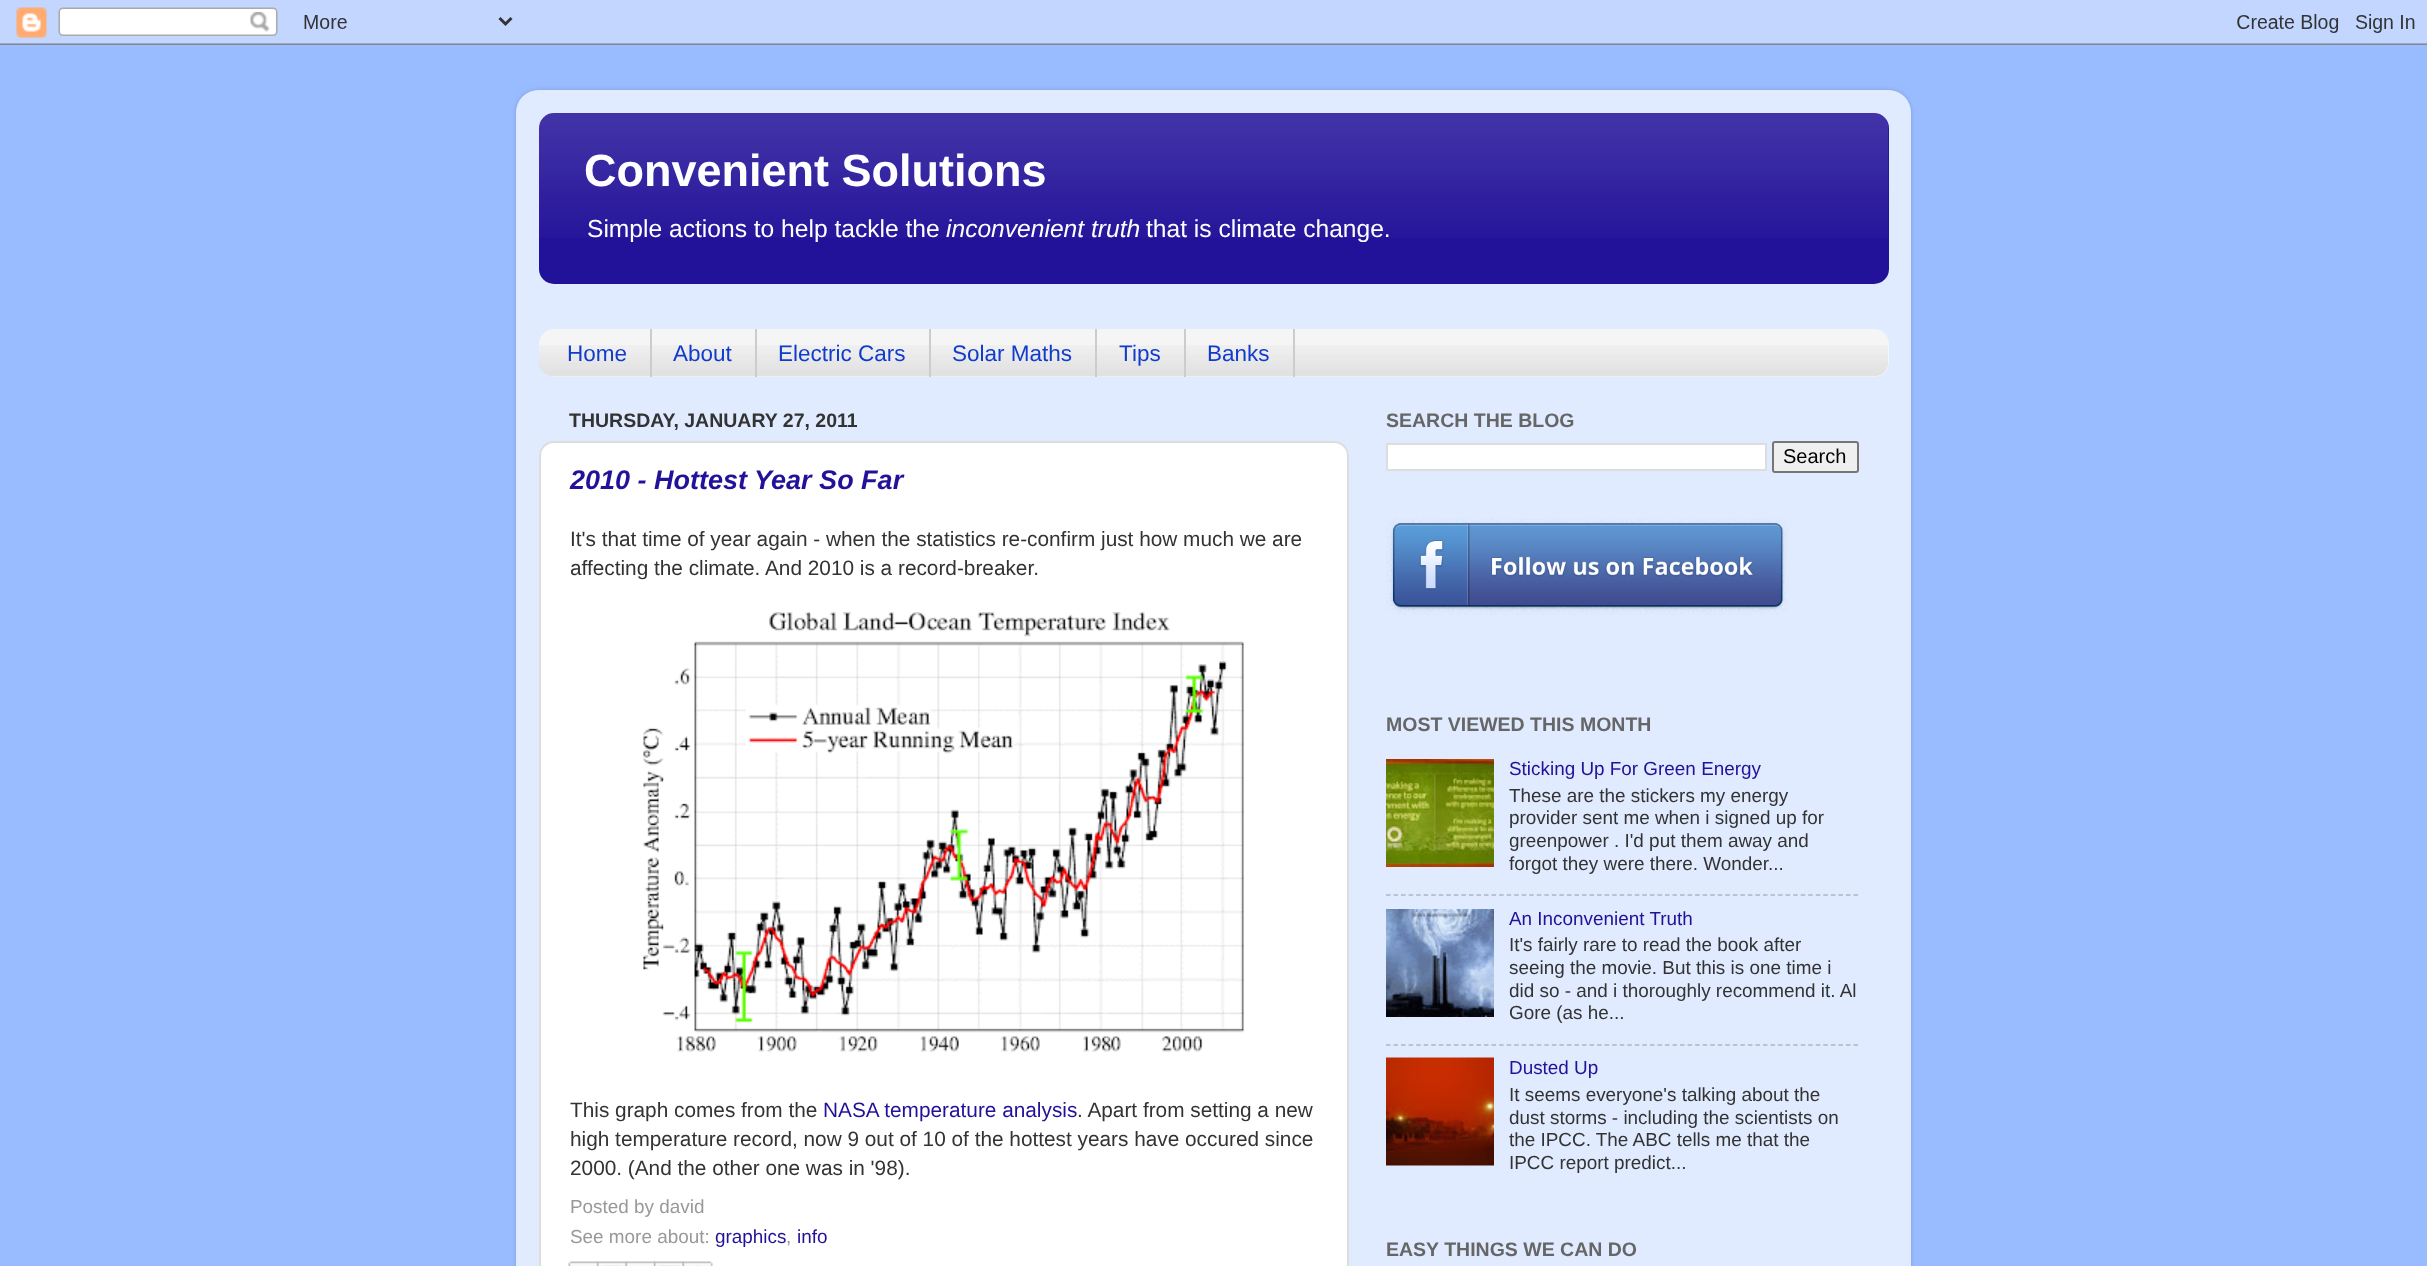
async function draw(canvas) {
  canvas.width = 2427;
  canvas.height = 1266;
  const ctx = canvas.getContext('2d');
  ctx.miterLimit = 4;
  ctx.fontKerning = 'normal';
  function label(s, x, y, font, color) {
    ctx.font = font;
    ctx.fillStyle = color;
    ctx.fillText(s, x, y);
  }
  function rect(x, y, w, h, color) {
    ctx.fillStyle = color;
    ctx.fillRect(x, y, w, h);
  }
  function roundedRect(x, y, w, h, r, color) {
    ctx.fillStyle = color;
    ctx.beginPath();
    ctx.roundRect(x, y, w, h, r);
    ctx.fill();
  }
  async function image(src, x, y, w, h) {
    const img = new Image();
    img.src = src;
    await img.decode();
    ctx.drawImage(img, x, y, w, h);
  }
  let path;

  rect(0, 0, 2427, 1266, '#9bf');
  await image('assets/img1.png', 0, 0, 2427, 45);
  ctx.save();
  path = new Path2D('M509 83H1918V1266H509ZM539 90H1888C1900.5 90 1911 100.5 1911 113V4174C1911 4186.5 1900.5 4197 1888 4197H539C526.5 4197 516 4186.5 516 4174V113C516 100.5 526.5 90 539 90Z');
  ctx.clip(path, 'evenodd');
  ctx.fillStyle = '#00000026';
  ctx.filter = 'blur(2px)';
  ctx.beginPath();
  ctx.roundRect(516, 90, 1395, 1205, 23);
  ctx.fill();
  ctx.filter = 'none';
  ctx.restore();
  await image('assets/img2.png', 516, 90, 1395, 1176);
  roundedRect(539, 113, 1350, 171, 15, '#219');
  await image('assets/img3.png', 539, 113, 1350, 125);
  label('Convenient Solutions', 584, 186, 'bold 45px Liberation Sans', '#fff');
  label('Simple actions to help tackle the', 587, 237, '24.6px Liberation Sans', '#fff');
  label('inconvenient truth', 946, 237, 'italic 24.6px Liberation Sans', '#fff');
  label('that is climate change.', 1146, 237, '24.6px Liberation Sans', '#fff');
  roundedRect(539, 329, 1350, 48, 15, '#f5f5f5');
  await image('assets/img4.png', 539, 345, 1349, 32);
  rect(650, 329, 2, 48, '#ccc');
  label('Home', 567, 361, '22.5px Liberation Sans', '#113bcc');
  rect(755, 329, 2, 48, '#ccc');
  label('About', 673, 361, '22.5px Liberation Sans', '#113bcc');
  rect(929, 329, 2, 48, '#ccc');
  label('Electric Cars', 778, 361, '22.5px Liberation Sans', '#113bcc');
  rect(1095, 329, 2, 48, '#ccc');
  label('Solar Maths', 952, 361, '22.5px Liberation Sans', '#113bcc');
  rect(1184, 329, 2, 48, '#ccc');
  label('Tips', 1119, 361, '22.5px Liberation Sans', '#113bcc');
  rect(1293, 329, 2, 48, '#ccc');
  label('Banks', 1207, 361, '22.5px Liberation Sans', '#113bcc');
  label('THURSDAY, JANUARY 27, 2011', 569, 427, 'bold 19.5px Liberation Sans', '#333');
  ctx.fillStyle = '#fff';
  ctx.beginPath();
  ctx.roundRect(540, 442, 808, 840, 14);
  ctx.fill();
  ctx.strokeStyle = '#ddd';
  ctx.lineWidth = 2;
  ctx.stroke();
  label('2010 - Hottest Year So Far', 570, 489, 'italic bold 27px Liberation Sans', '#219');
  label('It\'s that time of year again - when the statistics re-confirm just how much we are', 570, 546, '20.8px Liberation Sans', '#333');
  label('affecting the climate. And 2010 is a record-breaker.', 570, 575, '20.8px Liberation Sans', '#333');
  await image('assets/img5.png', 643, 612, 601, 440);
  label('This graph comes from the', 570, 1117, '20.8px Liberation Sans', '#333');
  label('NASA temperature analysis', 823, 1117, '20.8px Liberation Sans', '#219');
  label('. Apart from setting a new', 1077, 1117, '20.8px Liberation Sans', '#333');
  label('high temperature record, now 9 out of 10 of the hottest years have occured since', 570, 1146, '20.8px Liberation Sans', '#333');
  label('2000. (And the other one was in \'98).', 570, 1175, '20.8px Liberation Sans', '#333');
  label('Posted by david', 570, 1213, '18.9px Liberation Sans', '#999');
  label('See more about:', 570, 1243, '18.9px Liberation Sans', '#999');
  label('graphics', 715, 1243, '18.9px Liberation Sans', '#219');
  label(',', 786, 1243, '18.9px Liberation Sans', '#999');
  label('info', 797, 1243, '18.9px Liberation Sans', '#219');
  await image('assets/img6.png', 568, 1261, 31, 5);
  await image('assets/img7.png', 597, 1261, 30, 5);
  await image('assets/img8.png', 625, 1261, 31, 5);
  await image('assets/img9.png', 654, 1261, 30, 5);
  await image('assets/img10.png', 682, 1261, 31, 5);
  label('SEARCH THE BLOG', 1386, 427, 'bold 19.5px Liberation Sans', '#666');
  ctx.fillStyle = '#fff';
  ctx.beginPath();
  ctx.rect(1387, 444, 379, 26);
  ctx.fill();
  ctx.stroke();
  ctx.fillStyle = '#efefef';
  ctx.beginPath();
  ctx.roundRect(1773, 442, 85, 30, 2);
  ctx.fill();
  ctx.strokeStyle = '#767676';
  ctx.stroke();
  label('Search', 1783, 463, '20px Liberation Sans', '#000');
  await image('assets/img11.png', 1386, 518, 403, 97);
  label('MOST VIEWED THIS MONTH', 1386, 731, 'bold 19.5px Liberation Sans', '#666');
  await image('assets/img12.png', 1386, 759, 108, 108);
  label('Sticking Up For Green Energy', 1509, 775, '18.9px Liberation Sans', '#219');
  label('These are the stickers my energy', 1509, 802, '18.9px Liberation Sans', '#333');
  label('provider sent me when i signed up for', 1509, 824, '18.9px Liberation Sans', '#333');
  label('greenpower . I\'d put them away and', 1509, 847, '18.9px Liberation Sans', '#333');
  label('forgot they were there. Wonder...', 1509, 870, '18.9px Liberation Sans', '#333');
  path = new Path2D('M1386 895H1858.5');
  ctx.strokeStyle = '#b0b5c0';
  ctx.lineWidth = 1.5;
  ctx.setLineDash([4.5, 3.04]);
  ctx.stroke(path);
  await image('assets/img13.png', 1386, 909, 108, 108);
  label('An Inconvenient Truth', 1509, 925, '18.9px Liberation Sans', '#219');
  label('It\'s fairly rare to read the book after', 1509, 951, '18.9px Liberation Sans', '#333');
  label('seeing the movie. But this is one time i', 1509, 974, '18.9px Liberation Sans', '#333');
  label('did so - and i thoroughly recommend it. Al', 1509, 997, '18.9px Liberation Sans', '#333');
  label('Gore (as he...', 1509, 1019, '18.9px Liberation Sans', '#333');
  path = new Path2D('M1386 1045H1858.5');
  ctx.stroke(path);
  await image('assets/img14.png', 1386, 1057, 108, 109);
  label('Dusted Up', 1509, 1074, '18.9px Liberation Sans', '#219');
  label('It seems everyone\'s talking about the', 1509, 1101, '18.9px Liberation Sans', '#333');
  label('dust storms - including the scientists on', 1509, 1124, '18.9px Liberation Sans', '#333');
  label('the IPCC. The ABC tells me that the', 1509, 1146, '18.9px Liberation Sans', '#333');
  label('IPCC report predict...', 1509, 1169, '18.9px Liberation Sans', '#333');
  label('EASY THINGS WE CAN DO', 1386, 1256, 'bold 19.5px Liberation Sans', '#666');
}

draw(document.querySelector('canvas'));
